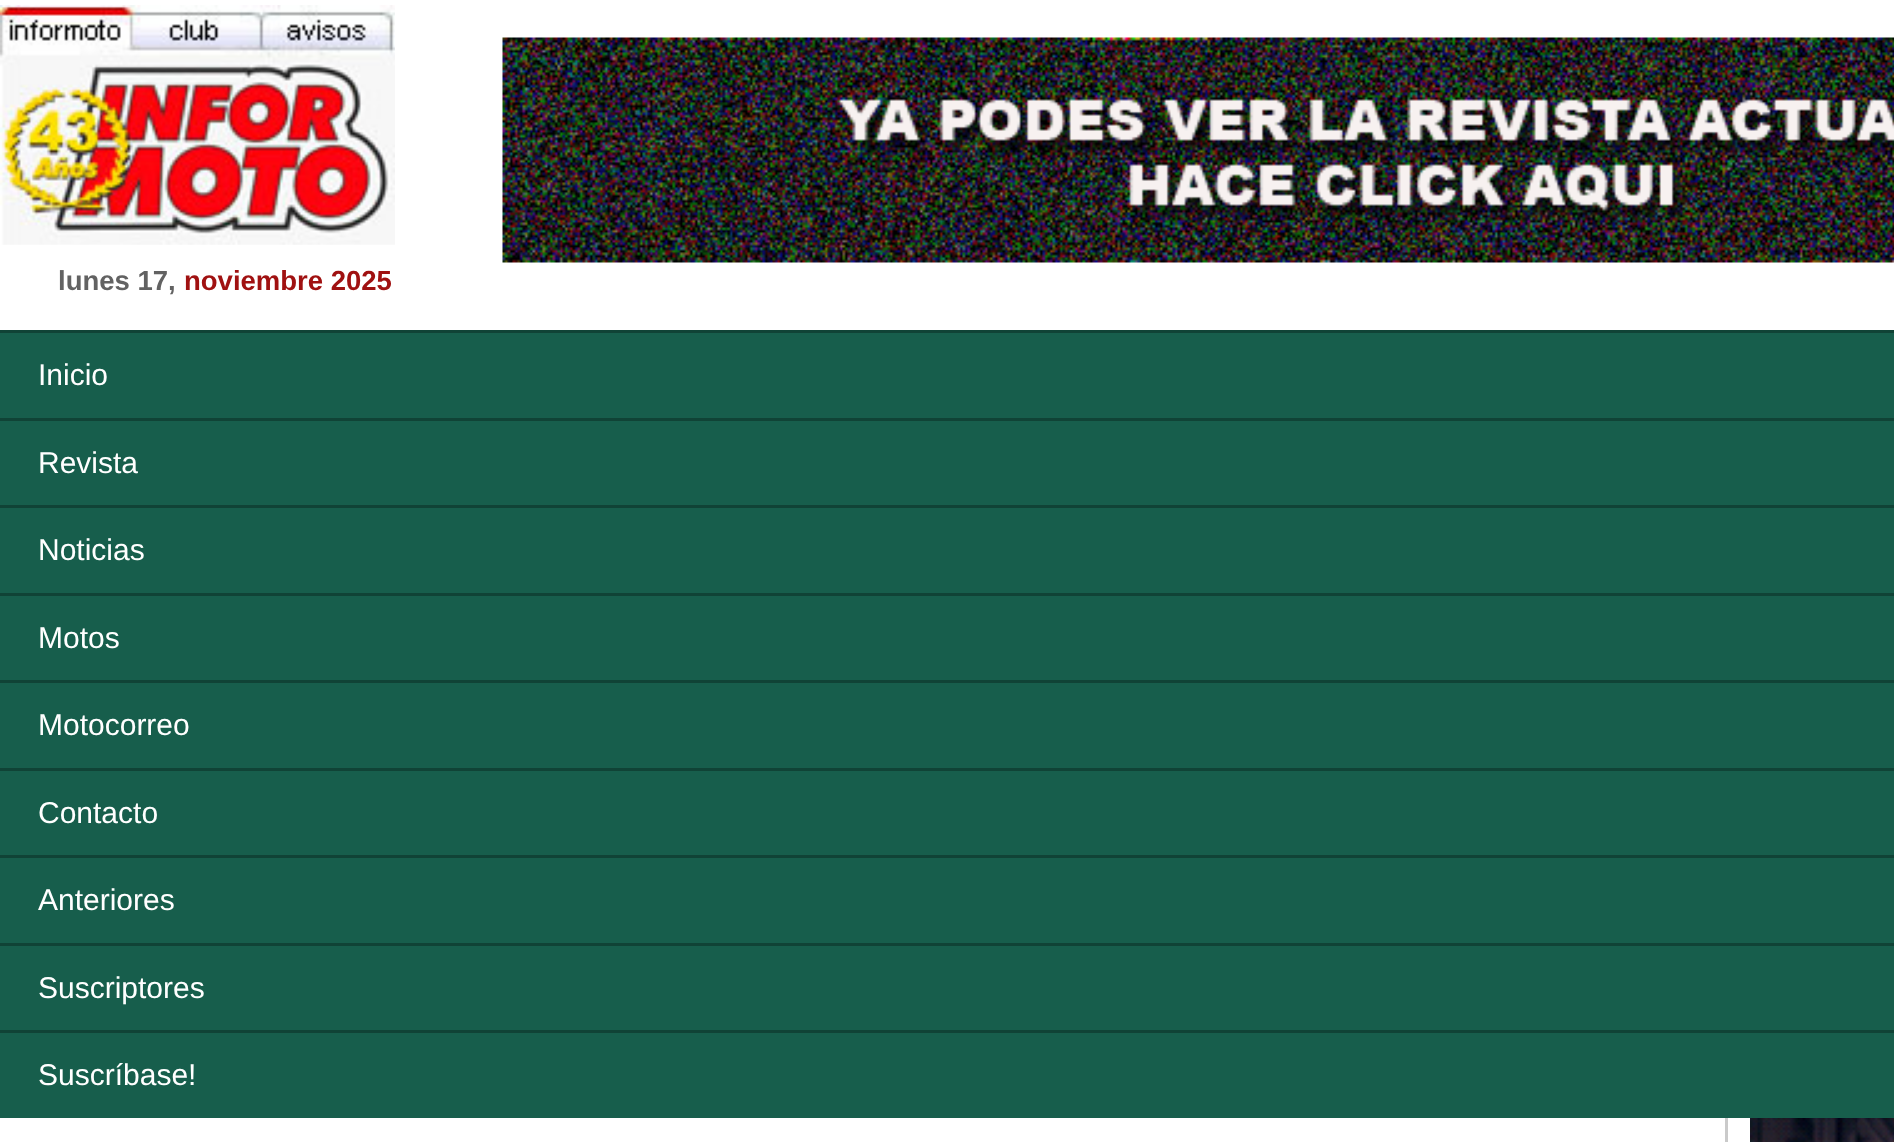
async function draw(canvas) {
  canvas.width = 1894;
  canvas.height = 1142;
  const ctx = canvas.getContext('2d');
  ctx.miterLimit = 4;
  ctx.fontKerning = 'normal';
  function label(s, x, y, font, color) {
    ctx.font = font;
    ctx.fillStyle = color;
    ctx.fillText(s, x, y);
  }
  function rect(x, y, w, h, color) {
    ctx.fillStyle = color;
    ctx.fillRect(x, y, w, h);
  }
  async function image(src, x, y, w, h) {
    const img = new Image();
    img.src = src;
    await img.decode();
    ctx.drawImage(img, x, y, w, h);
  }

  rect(0, 0, 1894, 1142, '#fff');
  await image('assets/img1.png', 502, 37, 1392, 226);
  await image('assets/img2.png', 0, 5, 395, 240);
  label('lunes 17,', 58, 290, 'bold 27.5px Liberation Sans', '#626262');
  label('noviembre 2025', 184, 290, 'bold 27.5px Liberation Sans', '#a01111');
  rect(0, 333, 1894, 785, '#175e4c');
  rect(0, 330, 1894, 3, '#104336');
  label('Inicio', 38, 385, '30px Liberation Sans', '#fff');
  rect(0, 418, 1894, 3, '#104336');
  label('Revista', 38, 473, '30px Liberation Sans', '#fff');
  rect(0, 505, 1894, 3, '#104336');
  label('Noticias', 38, 560, '30px Liberation Sans', '#fff');
  rect(0, 593, 1894, 3, '#104336');
  label('Motos', 38, 648, '30px Liberation Sans', '#fff');
  rect(0, 680, 1894, 3, '#104336');
  label('Motocorreo', 38, 735, '30px Liberation Sans', '#fff');
  rect(0, 768, 1894, 3, '#104336');
  label('Contacto', 38, 823, '30px Liberation Sans', '#fff');
  rect(0, 855, 1894, 3, '#104336');
  label('Anteriores', 38, 910, '30px Liberation Sans', '#fff');
  rect(0, 943, 1894, 3, '#104336');
  label('Suscriptores', 38, 998, '30px Liberation Sans', '#fff');
  rect(0, 1030, 1894, 3, '#104336');
  label('Suscríbase!', 38, 1085, '30px Liberation Sans', '#fff');
  rect(1725, 1118, 3, 24, '#cacaca');
  await image('assets/img3.png', 1750, 1118, 144, 24);
}

draw(document.querySelector('canvas'));
